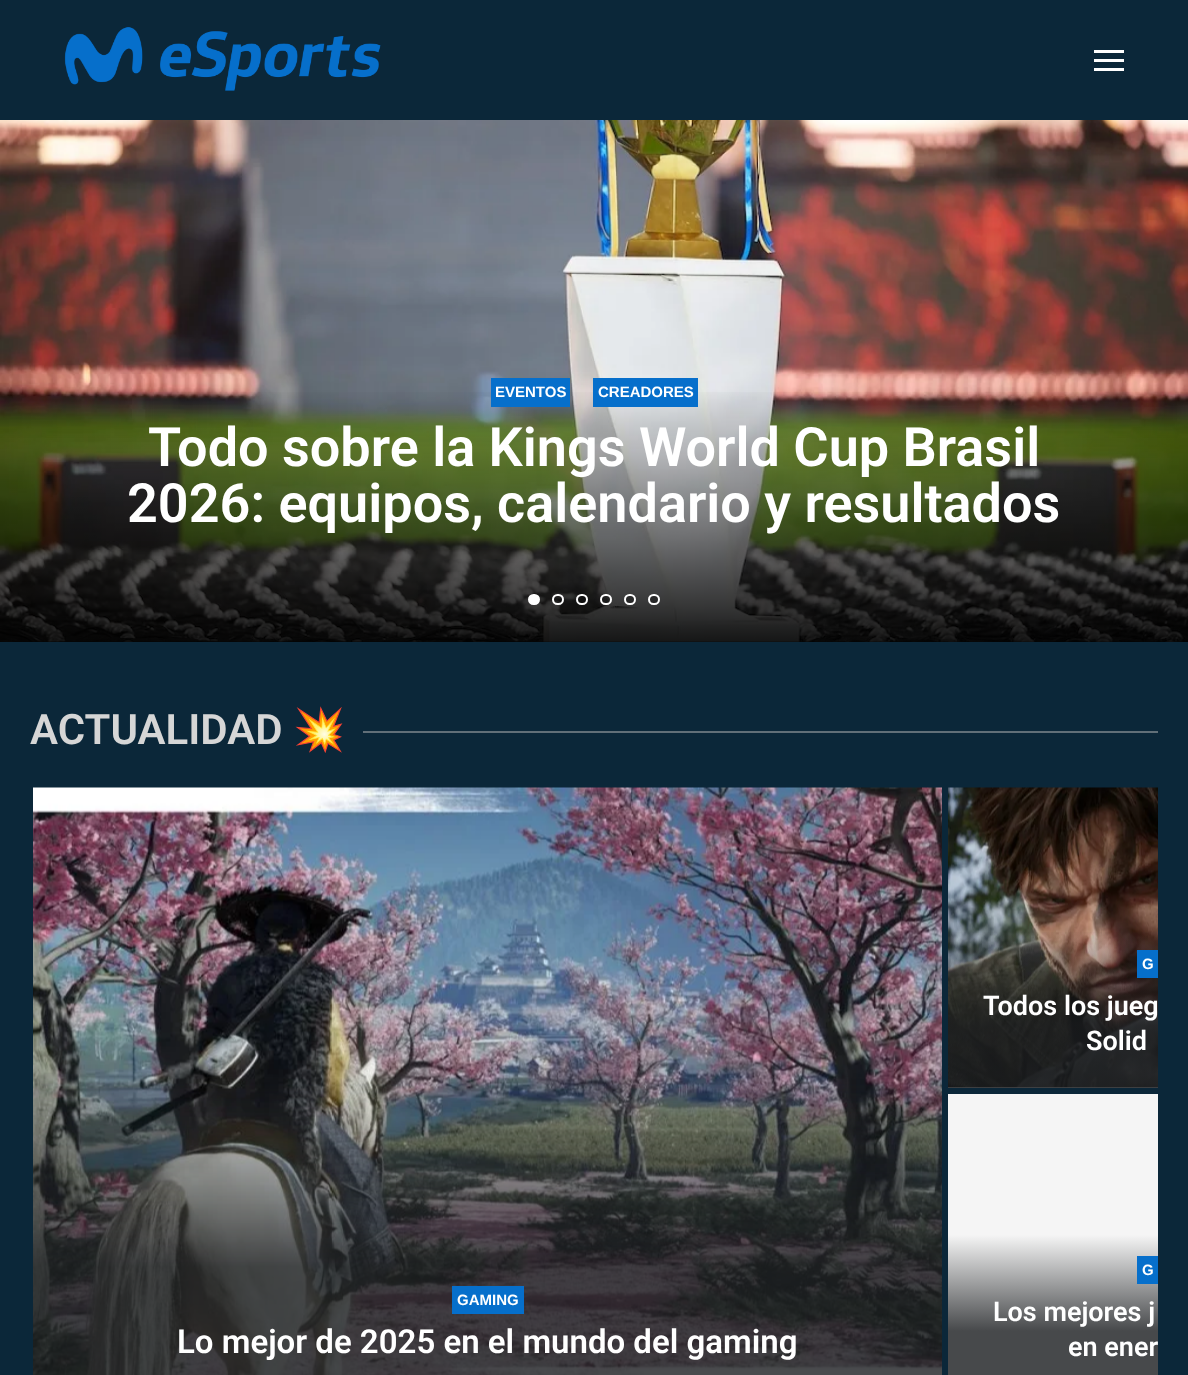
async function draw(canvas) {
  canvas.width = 1188;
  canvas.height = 1375;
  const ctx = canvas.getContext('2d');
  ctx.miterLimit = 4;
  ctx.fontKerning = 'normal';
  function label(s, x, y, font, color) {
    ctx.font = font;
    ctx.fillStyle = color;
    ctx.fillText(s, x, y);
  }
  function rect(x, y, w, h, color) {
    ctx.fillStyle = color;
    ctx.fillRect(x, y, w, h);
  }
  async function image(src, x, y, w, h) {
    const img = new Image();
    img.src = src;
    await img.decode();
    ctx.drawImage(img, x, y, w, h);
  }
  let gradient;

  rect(0, 0, 1188, 1375, '#0b2739');
  await image('assets/img1.png', 64, 27, 317, 64);
  rect(1094, 50, 30, 3, '#fff');
  rect(1094, 68, 30, 3, '#fff');
  rect(1094, 59, 30, 3, '#fff');
  await image('assets/img2.png', 0, 120, 1188, 522);
  gradient = ctx.createLinearGradient(594, 642, 594, 386);
  gradient.addColorStop(0, '#000000e6');
  gradient.addColorStop(1, '#00000000');
  ctx.fillStyle = gradient;
  ctx.fillRect(0, 392, 1188, 250);
  rect(491, 378, 79, 29, '#066fcb');
  label('EVENTOS', 495, 397, 'bold 15px Liberation Sans', '#fff');
  rect(593, 378, 105, 29, '#066fcb');
  label('CREADORES', 598, 397, 'bold 15px Liberation Sans', '#fff');
  label('Todo sobre la Kings World Cup Brasil', 148, 466, '600 54px Roboto', '#fff');
  label('2026: equipos, calendario y resultados', 127, 522, '600 54px Roboto', '#fff');
  ctx.beginPath();
  ctx.roundRect(529, 595, 10, 9, 4.5);
  ctx.fill();
  ctx.strokeStyle = '#fff';
  ctx.lineWidth = 2;
  ctx.stroke();
  ctx.fillStyle = '#0000004d';
  ctx.beginPath();
  ctx.roundRect(553, 595, 10, 9, 4.5);
  ctx.fill();
  ctx.stroke();
  ctx.beginPath();
  ctx.roundRect(577, 595, 10, 9, 4.5);
  ctx.fill();
  ctx.stroke();
  ctx.beginPath();
  ctx.roundRect(601, 595, 10, 9, 4.5);
  ctx.fill();
  ctx.stroke();
  ctx.beginPath();
  ctx.roundRect(625, 595, 10, 9, 4.5);
  ctx.fill();
  ctx.stroke();
  ctx.beginPath();
  ctx.roundRect(649, 595, 10, 9, 4.5);
  ctx.fill();
  ctx.stroke();
  label('ACTUALIDAD', 30, 744, '600 42px Roboto', '#d6d6d6');
  label('💥', 293, 744, 'bold 42px Noto Color Emoji', '#d6d6d6');
  rect(363, 731, 795, 2, '#616f78');
  await image('assets/img3.png', 33, 787, 909, 588);
  rect(452, 1286, 72, 28, '#066fcb');
  label('GAMING', 457, 1305, 'bold 15px Liberation Sans', '#fff');
  label('Lo mejor de 2025 en el mundo del gaming', 177, 1353, '600 33px Roboto', '#fff');
  rect(948, 1087, 210, 1, '#f5f5f5');
  await image('assets/img4.png', 948, 787, 210, 301);
  gradient = ctx.createLinearGradient(1173, 788, 1173, 1088);
  gradient.addColorStop(0.47, '#1c1e2100');
  gradient.addColorStop(0.79, '#1c1e21cc');
  ctx.fillStyle = gradient;
  ctx.fillRect(948, 932, 210, 156);
  rect(1137, 950, 21, 28, '#066fcb');
  label('G', 1142, 969, 'bold 15px Liberation Sans', '#fff');
  label('Todos los jueg', 983, 1015, '600 27px Roboto', '#fff');
  label('Solid', 1086, 1050, '600 27px Roboto', '#fff');
  gradient = ctx.createLinearGradient(1173, 1094, 1173, 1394);
  gradient.addColorStop(0.47, '#f5f5f5');
  gradient.addColorStop(0.79, '#47494b');
  ctx.fillStyle = gradient;
  ctx.fillRect(948, 1094, 210, 281);
  rect(1137, 1256, 21, 28, '#066fcb');
  label('G', 1142, 1275, 'bold 15px Liberation Sans', '#fff');
  label('Los mejores j', 993, 1321, '600 27px Roboto', '#fff');
  label('en ener', 1068, 1356, '600 27px Roboto', '#fff');
}

draw(document.querySelector('canvas'));
